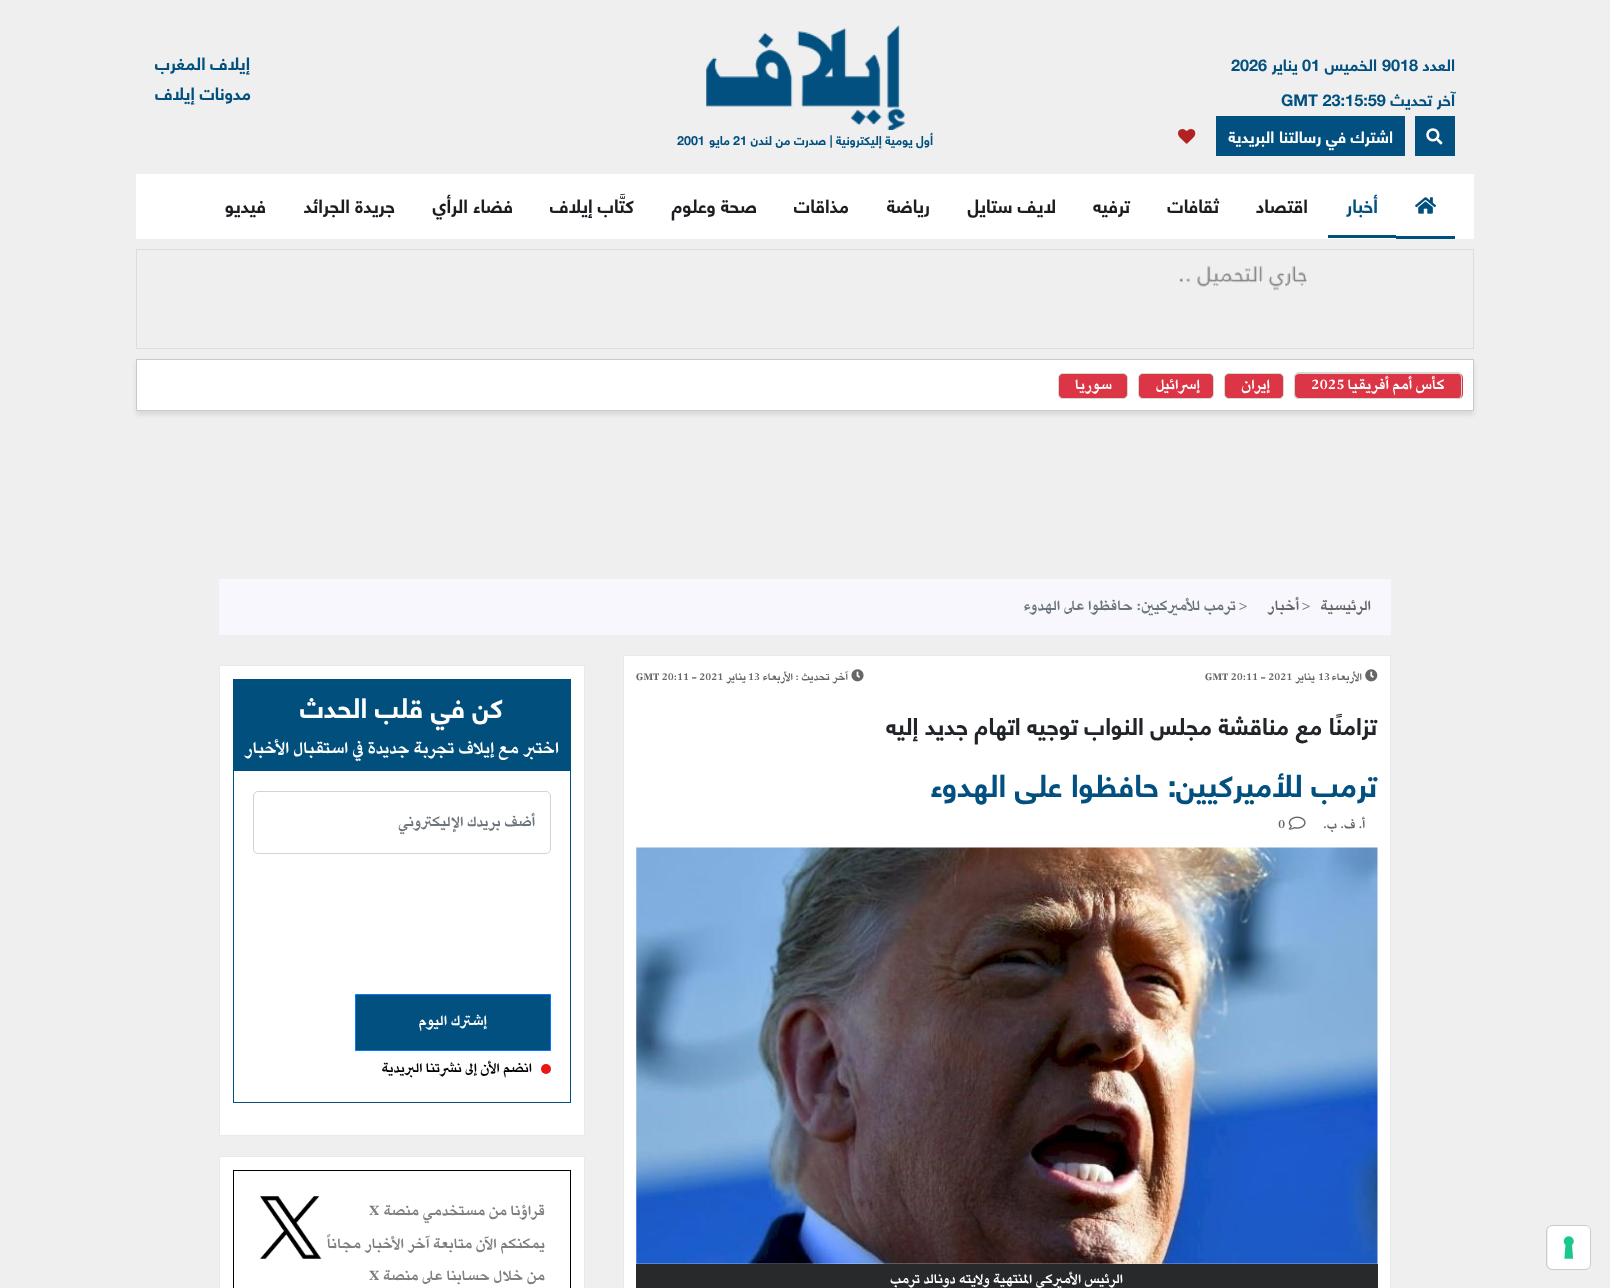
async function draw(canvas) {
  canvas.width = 1610;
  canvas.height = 1288;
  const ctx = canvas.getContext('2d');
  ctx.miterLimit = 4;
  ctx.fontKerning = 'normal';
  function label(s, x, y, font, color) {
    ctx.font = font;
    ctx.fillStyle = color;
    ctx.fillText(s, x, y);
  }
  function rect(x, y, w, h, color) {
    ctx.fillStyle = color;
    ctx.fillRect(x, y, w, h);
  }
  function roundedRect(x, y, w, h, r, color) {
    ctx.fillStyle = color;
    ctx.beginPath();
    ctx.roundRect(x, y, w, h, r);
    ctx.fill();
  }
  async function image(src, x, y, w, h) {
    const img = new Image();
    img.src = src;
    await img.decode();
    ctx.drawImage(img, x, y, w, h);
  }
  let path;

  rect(0, 0, 1610, 1288, '#efefef');
  ctx.direction = 'rtl';
  label('العدد', 1455, 71, 'bold 16.25px "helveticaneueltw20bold"', '#01507f');
  ctx.direction = 'ltr';
  label('9018', 1382, 71, 'bold 16.25px "helveticaneueltw20bold"', '#01507f');
  ctx.direction = 'rtl';
  label('الخميس', 1377, 71, 'bold 16.25px "helveticaneueltw20bold"', '#01507f');
  ctx.direction = 'ltr';
  label('01', 1302, 71, 'bold 16.25px "helveticaneueltw20bold"', '#01507f');
  ctx.direction = 'rtl';
  label('يناير', 1298, 71, 'bold 16.25px "helveticaneueltw20bold"', '#01507f');
  ctx.direction = 'ltr';
  label('2026', 1231, 71, 'bold 16.25px "helveticaneueltw20bold"', '#01507f');
  ctx.direction = 'rtl';
  label('آخر تحديث', 1455, 106, 'bold 16.25px "helveticaneueltw20bold"', '#01507f');
  ctx.direction = 'ltr';
  label('GMT 23:15:59', 1281, 106, 'bold 16.25px "helveticaneueltw20bold"', '#01507f');
  rect(1415, 116, 40, 40, '#01507f');
  await image('assets/img1.png', 1426, 128, 17, 17);
  rect(1216, 116, 189, 40, '#01507f');
  ctx.direction = 'rtl';
  label('اشترك في رسالتنا البريدية', 1393, 143, 'bold 16.25px "helveticaneueltw20bold"', '#fff');
  await image('assets/img2.png', 1178, 129, 18, 15);
  await image('assets/img3.png', 706, 25, 199, 105);
  label('أول يومية إليكترونية | صدرت من لندن', 933, 145, 'bold 12.5px "helveticaneueltw20bold"', '#01507f');
  ctx.direction = 'ltr';
  label('21', 733, 145, 'bold 12.5px "helveticaneueltw20bold"', '#01507f');
  ctx.direction = 'rtl';
  label('مايو', 730, 145, 'bold 12.5px "helveticaneueltw20bold"', '#01507f');
  ctx.direction = 'ltr';
  label('2001', 677, 145, 'bold 12.5px "helveticaneueltw20bold"', '#01507f');
  ctx.direction = 'rtl';
  label('إيلاف المغرب', 250, 70, 'bold 17.5px "helveticaneueltw20bold"', '#01507f');
  label('مدونات إيلاف', 251, 100, 'bold 17.5px "helveticaneueltw20bold"', '#01507f');
  rect(136, 174, 1338, 65, '#fff');
  rect(1396, 236, 59, 3, '#014f7d');
  await image('assets/img4.png', 1415, 197, 21, 17);
  rect(1328, 235, 68, 3, '#014f7d');
  label('أخبار', 1378, 213, 'bold 18.75px "helveticaneueltw20bold"', '#01507f');
  label('اقتصاد', 1308, 213, 'bold 18.75px "helveticaneueltw20bold"', '#1c1c21');
  label('ثقافات', 1219, 213, 'bold 18.75px "helveticaneueltw20bold"', '#1c1c21');
  label('ترفيه', 1130, 213, 'bold 18.75px "helveticaneueltw20bold"', '#1c1c21');
  label('لايف ستايل', 1056, 213, 'bold 18.75px "helveticaneueltw20bold"', '#1c1c21');
  label('رياضة', 930, 213, 'bold 18.75px "helveticaneueltw20bold"', '#1c1c21');
  label('مذاقات', 849, 213, 'bold 18.75px "helveticaneueltw20bold"', '#1c1c21');
  label('صحة وعلوم', 757, 213, 'bold 18.75px "helveticaneueltw20bold"', '#1c1c21');
  label('كتَّاب إيلاف', 634, 213, 'bold 18.75px "helveticaneueltw20bold"', '#1c1c21');
  label('فضاء الرأي', 513, 213, 'bold 18.75px "helveticaneueltw20bold"', '#1c1c21');
  label('جريدة الجرائد', 395, 213, 'bold 18.75px "helveticaneueltw20bold"', '#1c1c21');
  label('فيديو', 266, 213, 'bold 18.75px "helveticaneueltw20bold"', '#1c1c21');
  ctx.strokeStyle = '#ddd';
  ctx.strokeRect(136.5, 249.5, 1337, 99);
  await image('assets/img5.png', 1179, 266, 129, 25);
  ctx.fillStyle = '#d9d9d9';
  ctx.filter = 'blur(2px)';
  ctx.beginPath();
  ctx.rect(136, 363, 1338, 52);
  ctx.fill();
  ctx.filter = 'none';
  ctx.fillStyle = '#fff';
  ctx.beginPath();
  ctx.rect(136.5, 359.5, 1337, 51);
  ctx.fill();
  ctx.strokeStyle = '#c9c9c9';
  ctx.stroke();
  ctx.fillStyle = '#dc3545';
  ctx.beginPath();
  ctx.roundRect(1344, 373, 119, 26, [0, 5, 5, 0]);
  ctx.fill();
  ctx.fillStyle = '#d7d7d7';
  path = new Path2D('M1344 372H1458C1460 372 1462 375 1462 378V394C1462 397 1460 399 1458 399H1344ZM1344 374H1458C1460 374 1461 375 1461 378V394C1461 396 1460 398 1458 398H1344Z');
  ctx.fill(path, 'evenodd');
  label('كأس أمم أفريقيا', 1445, 389, 'bold 17.5px "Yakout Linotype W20"', '#fff');
  ctx.fillStyle = '#dc3545';
  ctx.beginPath();
  ctx.roundRect(1294, 373, 50, 26, [5, 0, 0, 5]);
  ctx.fill();
  ctx.fillStyle = '#d7d7d7';
  path = new Path2D('M1299 372H1344V399H1299C1296 399 1294 397 1294 394V378C1294 375 1296 372 1299 372ZM1299 374H1344V398H1299C1297 398 1295 396 1295 394V378C1295 375 1297 374 1299 374Z');
  ctx.fill(path, 'evenodd');
  ctx.direction = 'ltr';
  label('2025', 1311, 389, 'bold 17.5px "Yakout Linotype W20"', '#fff');
  ctx.fillStyle = '#dc3545';
  ctx.beginPath();
  ctx.roundRect(1224.5, 373.5, 59, 25, 4.5);
  ctx.fill();
  ctx.strokeStyle = '#d7d7d7';
  ctx.stroke();
  ctx.direction = 'rtl';
  label('إيران', 1270, 389, 'bold 17.5px "Yakout Linotype W20"', '#fff');
  ctx.fillStyle = '#dc3545';
  ctx.beginPath();
  ctx.roundRect(1138.5, 373.5, 75, 25, 4.5);
  ctx.fill();
  ctx.stroke();
  label('إسرائيل', 1200, 389, 'bold 17.5px "Yakout Linotype W20"', '#fff');
  ctx.fillStyle = '#dc3545';
  ctx.beginPath();
  ctx.roundRect(1058.5, 373.5, 69, 25, 4.5);
  ctx.fill();
  ctx.stroke();
  label('سوريا', 1112, 389, 'bold 17.5px "Yakout Linotype W20"', '#fff');
  ctx.beginPath();
  ctx.roundRect(1546.5, 1225.5, 44, 44, 5.5);
  ctx.strokeStyle = '#cbcbcb';
  ctx.stroke();
  roundedRect(1548, 1226, 42, 43, 5, '#fff');
  await image('assets/img6.png', 1563, 1236, 11, 23);
  rect(219, 579, 1172, 56, '#f7f7fd');
  label('الرئيسية', 1371, 610, 'bold 17.5px "Yakout Linotype W20"', '#666');
  ctx.direction = 'ltr';
  label('>', 1302, 610, 'bold 16.25px "Yakout Linotype W20"', '#6c757d');
  ctx.direction = 'rtl';
  label('أخبار', 1299, 610, 'bold 17.5px "Yakout Linotype W20"', '#666');
  ctx.direction = 'ltr';
  label('>', 1239, 610, 'bold 16.25px "Yakout Linotype W20"', '#6c757d');
  ctx.direction = 'rtl';
  label('ترمب للأميركيين: حافظوا على الهدوء', 1236, 610, 'bold 17.5px "Yakout Linotype W20"', '#6c757d');
  ctx.fillStyle = '#fff';
  ctx.beginPath();
  ctx.rect(623.5, 655.5, 767, 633);
  ctx.fill();
  ctx.strokeStyle = '#e9e9e9';
  ctx.stroke();
  await image('assets/img7.png', 1365, 669, 13, 13);
  label('الأربعاء', 1362, 680, 'bold 12.5px "Yakout Linotype W20"', '#666');
  ctx.direction = 'ltr';
  label('13', 1318, 680, 'bold 12.5px "Yakout Linotype W20"', '#666');
  ctx.direction = 'rtl';
  label('يناير', 1315, 680, 'bold 12.5px "Yakout Linotype W20"', '#666');
  ctx.direction = 'ltr';
  label('GMT 20:11 - 2021', 1205, 680, 'bold 12.5px "Yakout Linotype W20"', '#666');
  await image('assets/img8.png', 851, 669, 13, 13);
  ctx.direction = 'rtl';
  label('آخر تحديث :', 848, 680, 'bold 12.5px "Yakout Linotype W20"', '#666');
  label('الأربعاء', 793, 680, 'bold 12.5px "Yakout Linotype W20"', '#666');
  ctx.direction = 'ltr';
  label('13', 748, 680, 'bold 12.5px "Yakout Linotype W20"', '#666');
  ctx.direction = 'rtl';
  label('يناير', 746, 680, 'bold 12.5px "Yakout Linotype W20"', '#666');
  ctx.direction = 'ltr';
  label('GMT 20:11 - 2021', 636, 680, 'bold 12.5px "Yakout Linotype W20"', '#666');
  ctx.direction = 'rtl';
  label('تزامنًا مع مناقشة مجلس النواب توجيه اتهام جديد إليه', 1377, 735, 'bold 23.75px "helveticaneueltw20bold"', '#212428');
  label('ترمب للأميركيين: حافظوا على الهدوء', 1377, 797, 'bold 31.25px "helveticaneueltw20bold"', '#01507f');
  label('أ. ف. ب.', 1365, 828, 'bold 15px "Yakout Linotype W20"', '#666');
  await image('assets/img9.png', 1288, 816, 18, 14);
  ctx.direction = 'ltr';
  label('0', 1278, 828, 'bold 15px "Yakout Linotype W20"', '#666');
  await image('assets/img10.png', 636, 847, 742, 417);
  rect(636, 1264, 742, 24, '#27292b');
  ctx.direction = 'rtl';
  label('الرئيس الأميركي المنتهية ولايته دونالد ترمب', 1123, 1283, 'bold 16.25px "Yakout Linotype W20"', '#fff');
  ctx.beginPath();
  ctx.rect(219.5, 665.5, 365, 470);
  ctx.fill();
  ctx.stroke();
  ctx.strokeStyle = '#014f7d';
  ctx.strokeRect(233.5, 679.5, 337, 423);
  rect(234, 680, 336, 91, '#014f7d');
  label('كن في قلب الحدث', 503, 718, 'bold 27.5px "helveticaneueltw20bold"', '#fff');
  label('اختبر مع إيلاف تجربة جديدة في استقبال الأخبار', 559, 753, 'bold 20px "Yakout Linotype W20"', '#fff');
  ctx.beginPath();
  ctx.roundRect(253.5, 791.5, 297, 62, 4.5);
  ctx.strokeStyle = '#ced4da';
  ctx.stroke();
  label('أضف بريدك الإليكتروني', 535, 826, 'bold 17.5px "Yakout Linotype W20"', '#6c757d');
  ctx.fillStyle = '#01507f';
  ctx.beginPath();
  ctx.rect(355.5, 994.5, 195, 56);
  ctx.fill();
  ctx.strokeStyle = '#007bff';
  ctx.stroke();
  label('إشترك اليوم', 487, 1025, 'bold 17.5px "Yakout Linotype W20"', '#fff');
  ctx.fillStyle = '#eb1515';
  ctx.beginPath();
  ctx.arc(546, 1069, 5, 0, 2 * Math.PI);
  ctx.fill();
  label('انضم الأن إلى نشرتنا البريدية', 532, 1072, 'bold 16.25px "Yakout Linotype W20"', '#000');
  ctx.fillStyle = '#fff';
  ctx.beginPath();
  ctx.rect(219.5, 1156.5, 365, 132);
  ctx.fill();
  ctx.strokeStyle = '#e9e9e9';
  ctx.stroke();
  ctx.strokeStyle = '#000';
  ctx.strokeRect(233.5, 1170.5, 337, 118);
  label('قراؤنا من مستخدمي منصة', 545, 1215, 'bold 17.5px "Yakout Linotype W20"', '#807e7e');
  ctx.direction = 'ltr';
  label('X', 369, 1215, 'bold 17.5px "Yakout Linotype W20"', '#807e7e');
  await image('assets/img11.png', 260, 1196, 62, 63);
  ctx.direction = 'rtl';
  label('يمكنكم الآن متابعة آخر الأخبار مجاناً', 545, 1248, 'bold 17.5px "Yakout Linotype W20"', '#807e7e');
  label('من خلال حسابنا على منصة', 545, 1280, 'bold 17.5px "Yakout Linotype W20"', '#807e7e');
  ctx.direction = 'ltr';
  label('X', 369, 1280, 'bold 17.5px "Yakout Linotype W20"', '#807e7e');
}

draw(document.querySelector('canvas'));
